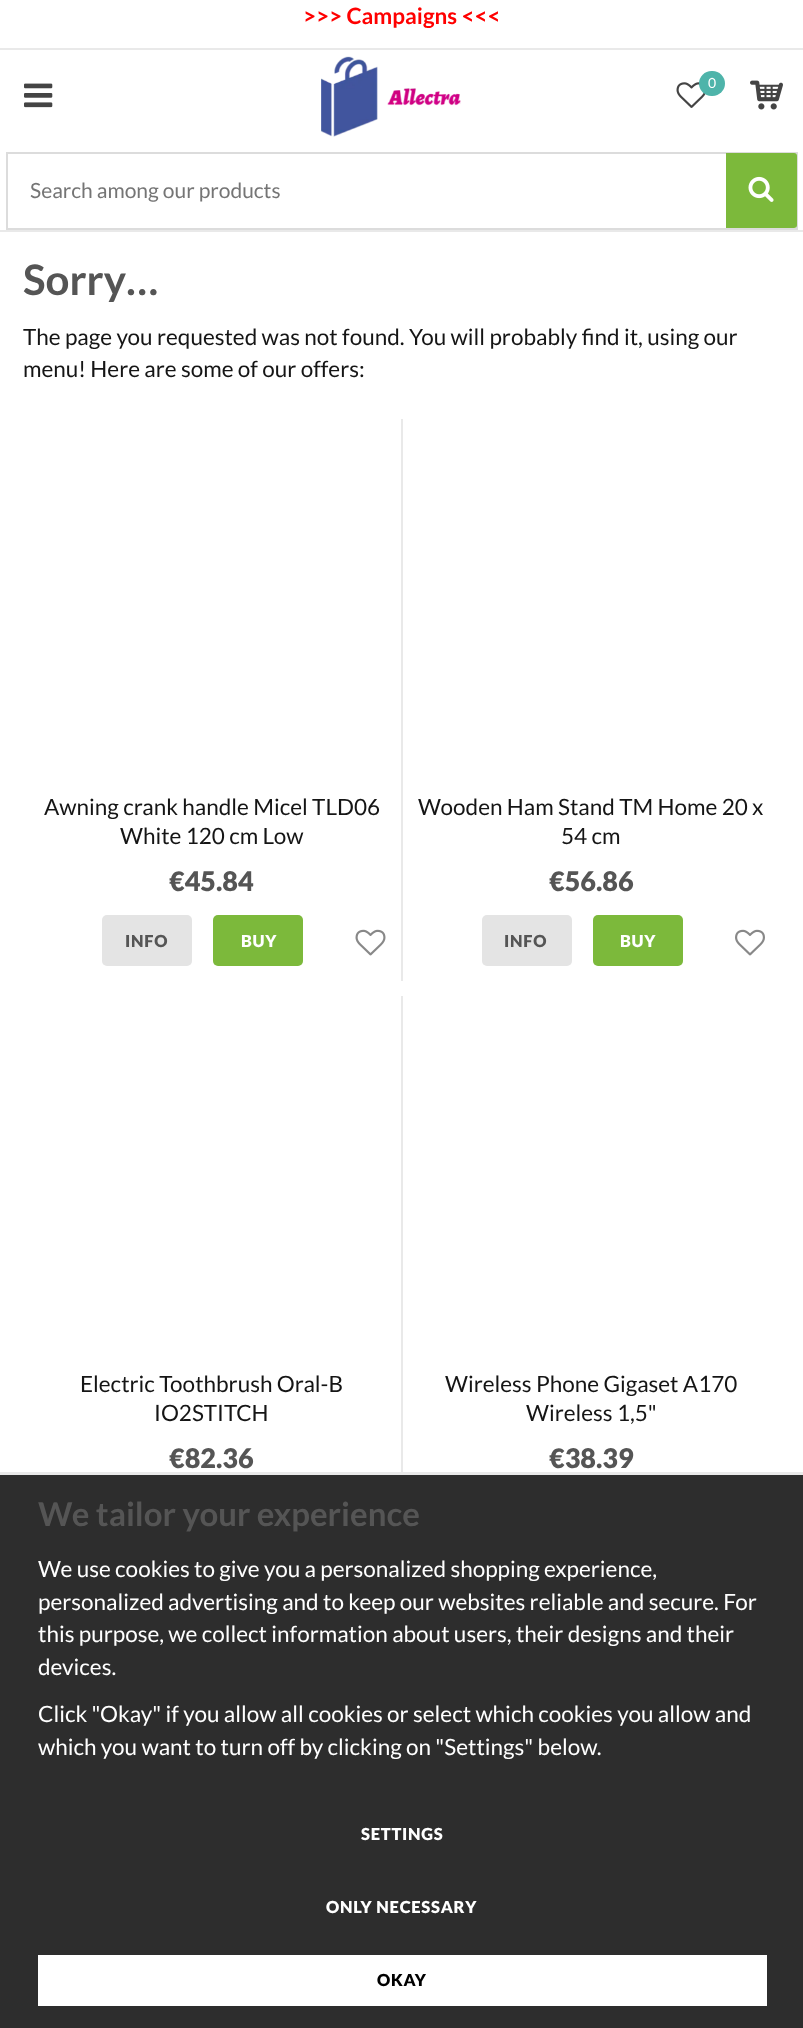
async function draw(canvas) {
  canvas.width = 803;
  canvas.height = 2028;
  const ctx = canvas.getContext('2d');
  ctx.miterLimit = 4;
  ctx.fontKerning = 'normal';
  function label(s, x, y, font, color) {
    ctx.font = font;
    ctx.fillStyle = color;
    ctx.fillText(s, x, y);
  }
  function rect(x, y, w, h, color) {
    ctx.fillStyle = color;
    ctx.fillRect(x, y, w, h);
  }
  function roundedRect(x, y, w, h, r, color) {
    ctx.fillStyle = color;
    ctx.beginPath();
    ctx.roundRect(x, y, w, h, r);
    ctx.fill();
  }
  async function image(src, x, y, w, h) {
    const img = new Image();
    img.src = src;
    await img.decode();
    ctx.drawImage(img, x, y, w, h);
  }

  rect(0, 0, 803, 2028, '#fff');
  rect(0, 230, 803, 2, '#e9e9e9');
  label('>>> Campaigns <<<', 303, 24, 'bold 22.5px Lato', '#f00');
  rect(0, 48, 803, 2, '#e9e9e9');
  await image('assets/img1.png', 24, 83, 29, 25);
  await image('assets/img2.png', 321, 56, 140, 81);
  await image('assets/img3.png', 676, 82, 30, 26);
  roundedRect(699, 71, 26, 25, 12.5, '#4eb4aa');
  label('0', 708, 88, '14px Lato', '#fff');
  await image('assets/img4.png', 750, 80, 33, 30);
  ctx.strokeStyle = '#dcdcdc';
  ctx.lineWidth = 2;
  ctx.strokeRect(7, 153, 790, 76);
  label('Search among our products', 30, 198, '21px Lato', '#757575');
  ctx.fillStyle = '#7cb93b';
  ctx.beginPath();
  ctx.roundRect(726, 153, 71, 75, [0, 3, 3, 0]);
  ctx.fill();
  await image('assets/img5.png', 748, 176, 26, 26);
  label('Sorry…', 23, 295, 'bold 42px Lato', '#555');
  label('The page you requested was not found. You will probably find it, using our', 23, 345, '22.5px Lato', '#151515');
  label('menu! Here are some of our offers:', 23, 377, '22.5px Lato', '#151515');
  label('Awning crank handle Micel TLD06', 44, 815, '22.5px Lato', '#151515');
  label('White 120 cm Low', 120, 844, '22.5px Lato', '#151515');
  label('€45.84', 169, 891, '900 27px Lato', '#555');
  roundedRect(102, 915, 90, 51, 5, '#e4e4e4');
  ctx.letterSpacing = '0.75px';
  label('INFO', 125, 947, '900 16.5px Lato', '#555');
  roundedRect(213, 915, 90, 51, 5, '#7cb93b');
  label('BUY', 241, 947, '900 16.5px Lato', '#fff');
  await image('assets/img6.png', 355, 929, 31, 27);
  rect(401, 419, 2, 562, '#e9e9e9');
  ctx.letterSpacing = '0px';
  label('Wooden Ham Stand TM Home 20 x', 418, 815, '22.5px Lato', '#151515');
  label('54 cm', 561, 844, '22.5px Lato', '#151515');
  label('€56.86', 549, 891, '900 27px Lato', '#555');
  roundedRect(482, 915, 90, 51, 5, '#e4e4e4');
  ctx.letterSpacing = '0.75px';
  label('INFO', 504, 947, '900 16.5px Lato', '#555');
  roundedRect(593, 915, 90, 51, 5, '#7cb93b');
  label('BUY', 620, 947, '900 16.5px Lato', '#fff');
  await image('assets/img7.png', 735, 929, 30, 27);
  ctx.letterSpacing = '0px';
  label('Electric Toothbrush Oral-B', 80, 1392, '22.5px Lato', '#151515');
  label('IO2STITCH', 154, 1421, '22.5px Lato', '#151515');
  label('€82.36', 169, 1468, '900 27px Lato', '#555');
  rect(401, 996, 2, 476, '#e9e9e9');
  label('Wireless Phone Gigaset A170', 445, 1392, '22.5px Lato', '#151515');
  label('Wireless 1,5"', 526, 1421, '22.5px Lato', '#151515');
  label('€38.39', 549, 1468, '900 27px Lato', '#555');
  rect(0, 1475, 803, 553, '#2d2d2d');
  rect(0, 1472, 803, 3, '#e9e9e9');
  label('We tailor your experience', 38, 1526, 'bold 33px Lato', '#555');
  label('We use cookies to give you a personalized shopping experience,', 38, 1577, '22.5px Lato', '#fff');
  label('personalized advertising and to keep our websites reliable and secure. For', 38, 1610, '22.5px Lato', '#fff');
  label('this purpose, we collect information about users, their designs and their', 38, 1642, '22.5px Lato', '#fff');
  label('devices.', 38, 1675, '22.5px Lato', '#fff');
  label('Click "Okay" if you allow all cookies or select which cookies you allow and', 38, 1722, '22.5px Lato', '#fff');
  label('which you want to turn off by clicking on "Settings" below.', 38, 1755, '22.5px Lato', '#fff');
  ctx.letterSpacing = '0.75px';
  label('SETTINGS', 361, 1840, '900 16.5px Lato', '#fff');
  label('ONLY NECESSARY', 326, 1913, '900 16.5px Lato', '#fff');
  rect(38, 1955, 729, 51, '#fff');
  label('OKAY', 377, 1986, '900 16.5px Lato', '#000');
}

draw(document.querySelector('canvas'));
